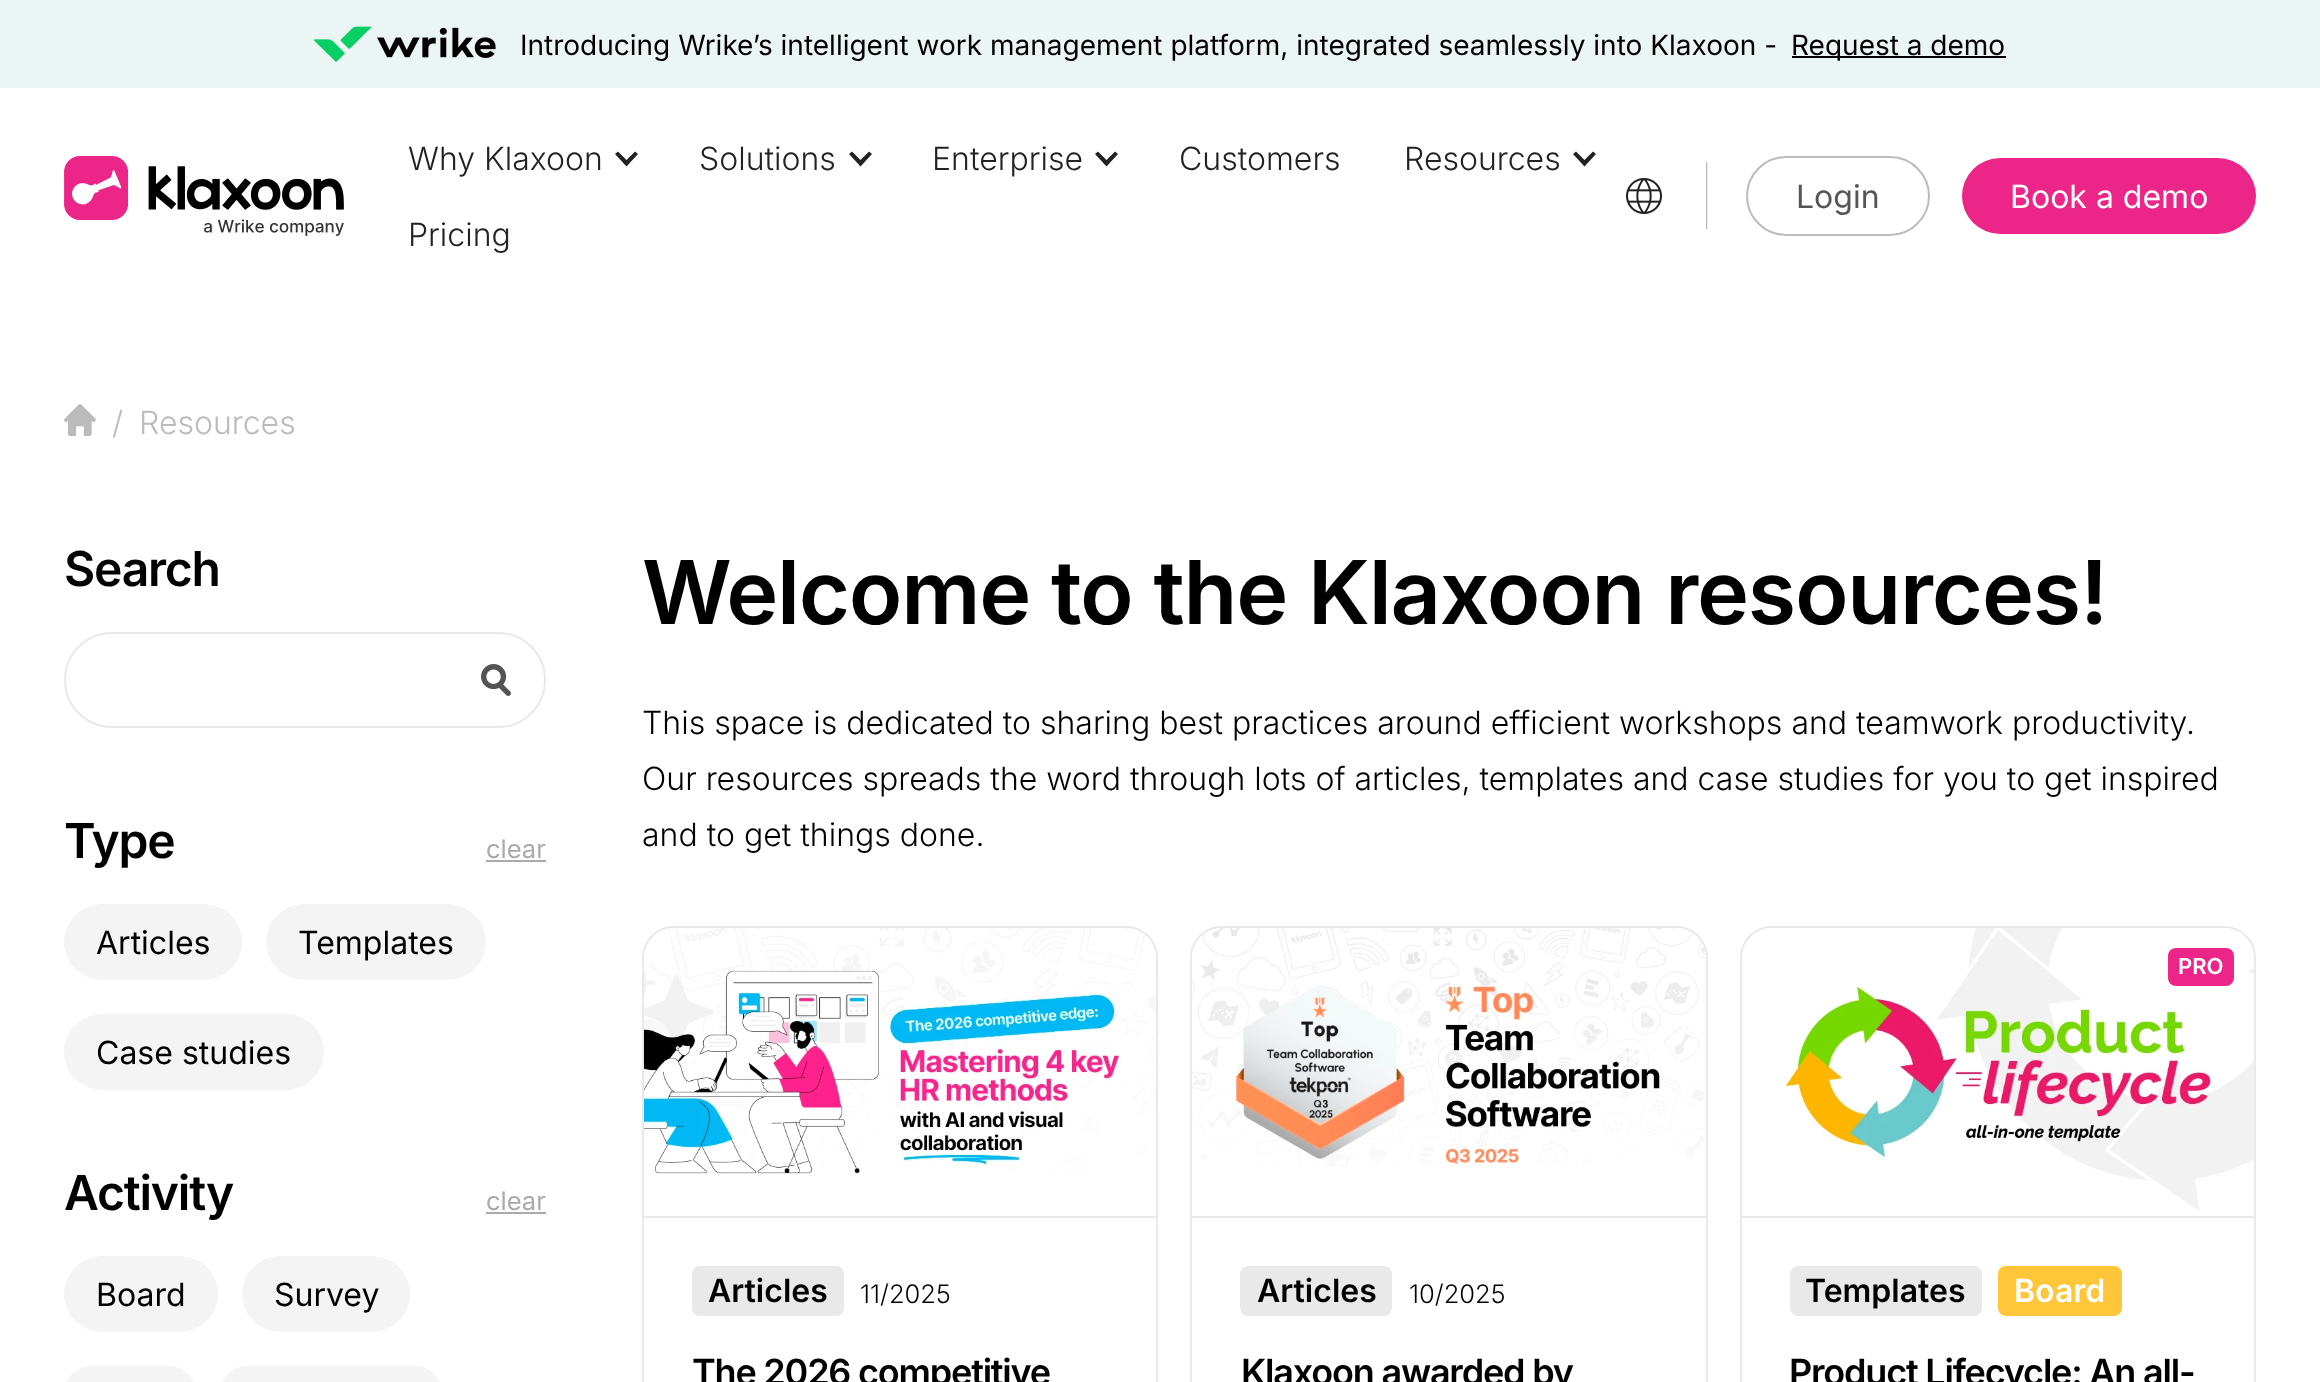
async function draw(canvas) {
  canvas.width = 2320;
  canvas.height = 1382;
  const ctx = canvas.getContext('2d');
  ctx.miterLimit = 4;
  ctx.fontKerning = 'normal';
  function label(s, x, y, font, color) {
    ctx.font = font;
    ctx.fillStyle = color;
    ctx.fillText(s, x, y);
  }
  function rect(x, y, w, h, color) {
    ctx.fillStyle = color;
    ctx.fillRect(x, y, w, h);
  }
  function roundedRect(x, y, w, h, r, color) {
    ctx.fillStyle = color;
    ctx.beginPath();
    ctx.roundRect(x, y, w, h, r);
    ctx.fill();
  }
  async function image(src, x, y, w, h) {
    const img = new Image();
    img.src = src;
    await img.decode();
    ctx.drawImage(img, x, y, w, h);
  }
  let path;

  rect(0, 0, 2320, 1382, '#fff');
  rect(0, 0, 2320, 88, '#ebf5f3');
  await image('assets/img1.png', 314, 26, 182, 36);
  label('Introducing Wrike’s intelligent work management platform, integrated seamlessly into Klaxoon -', 520, 55, '28px Inter', '#000');
  rect(1792, 56, 214, 2, '#000');
  label('Request a demo', 1791, 55, '28px Inter', '#000');
  await image('assets/img2.png', 64, 156, 280, 80);
  label('Why Klaxoon', 408, 170, '300 32px Inter', '#222');
  path = new Path2D('M635 151.5L626.5 160L618 151.5L615 154L626.5 166.5L638 154Z');
  ctx.fill(path);
  label('Solutions', 699, 170, '300 32px Inter', '#222');
  path = new Path2D('M869 151.5L860.5 160L852 151.5L849 154L860.5 166.5L872 154Z');
  ctx.fill(path);
  label('Enterprise', 932, 170, '300 32px Inter', '#222');
  path = new Path2D('M1115 151.5L1106.5 160L1098 151.5L1095 154L1106.5 166.5L1118 154Z');
  ctx.fill(path);
  label('Customers', 1179, 170, '300 32px Inter', '#222');
  label('Resources', 1404, 170, '300 32px Inter', '#222');
  path = new Path2D('M1593 151.5L1584.5 160L1576 151.5L1573 154L1584.5 166.5L1596 154Z');
  ctx.fill(path);
  label('Pricing', 408, 246, '300 32px Inter', '#222');
  await image('assets/img3.png', 1626, 178, 36, 36);
  label('|', 1699, 216, '100 56px Inter', '#bbb');
  ctx.beginPath();
  ctx.roundRect(1747, 157, 182, 78, 39);
  ctx.strokeStyle = '#bbb';
  ctx.lineWidth = 2;
  ctx.stroke();
  label('Login', 1796, 208, '32px Inter', '#555');
  roundedRect(1962, 158, 294, 76, 38, '#ec2688');
  label('Book a demo', 2010, 208, '32px Inter', '#fff');
  await image('assets/img4.png', 64, 404, 32, 32);
  label('/', 112, 434, '300 32px Inter', '#bbb');
  label('Resources', 139, 434, '300 32px Inter', '#bbb');
  ctx.letterSpacing = '-1.2px';
  label('Search', 64, 586, '600 48px Inter', '#000');
  await image('assets/img5.png', 481, 664, 30, 32);
  ctx.beginPath();
  ctx.roundRect(65, 633, 480, 94, 47);
  ctx.strokeStyle = '#e9e9e9';
  ctx.stroke();
  label('Type', 64, 858, '600 48px Inter', '#000');
  ctx.letterSpacing = '0px';
  label('clear', 486, 858, '25.5px Inter', '#aaa');
  rect(486, 860, 60, 2, '#aaa');
  roundedRect(64, 904, 178, 76, 38, '#f4f4f4');
  label('Articles', 96, 954, '32px Inter', '#000');
  roundedRect(266, 904, 220, 76, 38, '#f4f4f4');
  label('Templates', 298, 954, '32px Inter', '#000');
  roundedRect(64, 1014, 260, 76, 38, '#f4f4f4');
  label('Case studies', 96, 1064, '32px Inter', '#000');
  ctx.letterSpacing = '-1.2px';
  label('Activity', 64, 1210, '600 48px Inter', '#000');
  ctx.letterSpacing = '0px';
  label('clear', 486, 1210, '25.5px Inter', '#aaa');
  rect(486, 1212, 60, 2, '#aaa');
  roundedRect(64, 1256, 154, 76, 38, '#f4f4f4');
  label('Board', 96, 1306, '32px Inter', '#000');
  roundedRect(242, 1256, 168, 76, 38, '#f4f4f4');
  label('Survey', 274, 1306, '32px Inter', '#000');
  roundedRect(64, 1366, 132, 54, 38, '#f4f4f4');
  roundedRect(220, 1366, 222, 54, 38, '#f4f4f4');
  ctx.letterSpacing = '-1.2px';
  label('Welcome to the Klaxoon resources!', 642, 624, '600 88px Inter', '#000');
  ctx.letterSpacing = '0px';
  label('This space is dedicated to sharing best practices around efficient workshops and teamwork productivity.', 642, 734, '300 32px Inter', '#000');
  label('Our resources spreads the word through lots of articles, templates and case studies for you to get inspired', 642, 790, '300 32px Inter', '#000');
  label('and to get things done.', 642, 846, '300 32px Inter', '#000');
  ctx.beginPath();
  ctx.roundRect(643, 927, 514, 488, 31);
  ctx.stroke();
  await image('assets/img6.png', 644, 928, 512, 246);
  rect(644, 1216, 512, 2, '#e9e9e9');
  roundedRect(692, 1266, 152, 50, 8, '#e9e9e9');
  label('Articles', 708, 1302, '600 32px Inter', '#000');
  label('11/2025', 860, 1303, '300 25.5px Inter', '#000');
  ctx.letterSpacing = '-1.2px';
  label('The 2026 competitive', 692, 1385, '600 36px Inter', '#000');
  ctx.beginPath();
  ctx.roundRect(1191, 927, 516, 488, 31);
  ctx.stroke();
  await image('assets/img7.png', 1192, 928, 514, 239);
  rect(1192, 1216, 514, 2, '#e9e9e9');
  roundedRect(1240, 1266, 152, 50, 8, '#e9e9e9');
  ctx.letterSpacing = '0px';
  label('Articles', 1257, 1302, '600 32px Inter', '#000');
  label('10/2025', 1409, 1303, '300 25.5px Inter', '#000');
  ctx.letterSpacing = '-1.2px';
  label('Klaxoon awarded by', 1241, 1385, '600 36px Inter', '#000');
  ctx.beginPath();
  ctx.roundRect(1741, 927, 514, 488, 31);
  ctx.stroke();
  await image('assets/img8.png', 1742, 928, 512, 283);
  roundedRect(2168, 948, 66, 38, 8, '#ec2688');
  ctx.letterSpacing = '0px';
  label('PRO', 2178, 974, '600 22px Inter', '#fff');
  rect(1742, 1216, 512, 2, '#e9e9e9');
  roundedRect(1790, 1266, 192, 50, 8, '#e9e9e9');
  label('Templates', 1805, 1302, '600 32px Inter', '#000');
  roundedRect(1998, 1266, 124, 50, 8, '#ffc639');
  label('Board', 2014, 1302, '600 32px Inter', '#fff');
  ctx.letterSpacing = '-1.2px';
  label('Product Lifecycle: An all-', 1789, 1385, '600 36px Inter', '#000');
}

draw(document.querySelector('canvas'));
